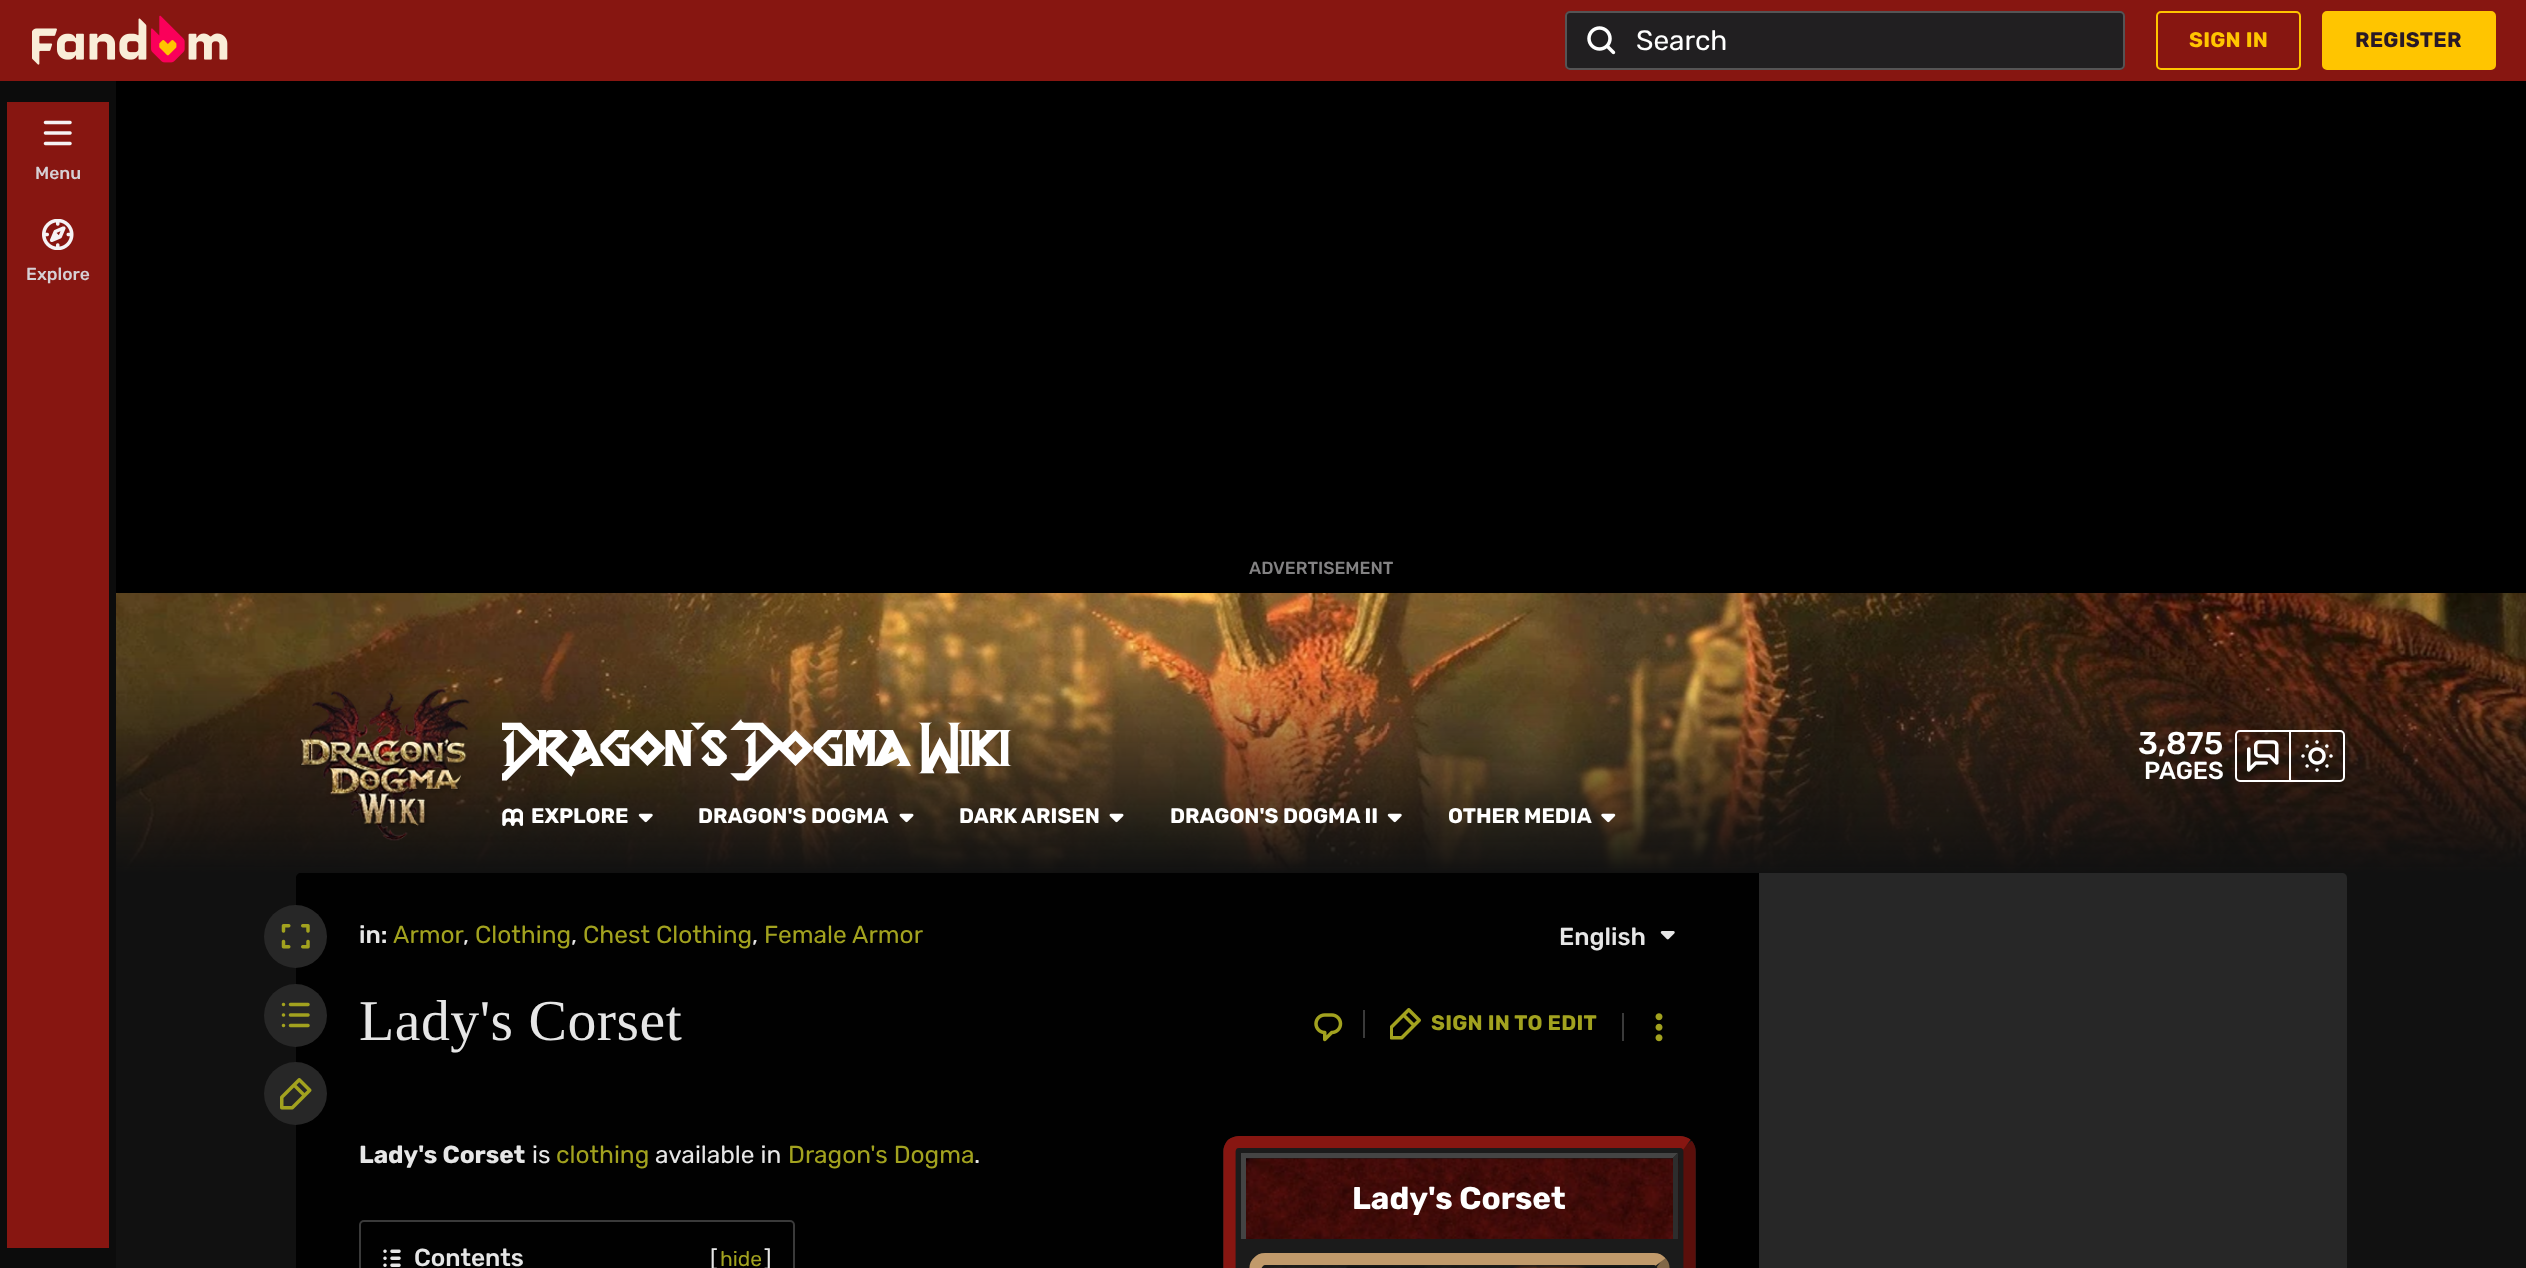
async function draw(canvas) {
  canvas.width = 2526;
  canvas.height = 1268;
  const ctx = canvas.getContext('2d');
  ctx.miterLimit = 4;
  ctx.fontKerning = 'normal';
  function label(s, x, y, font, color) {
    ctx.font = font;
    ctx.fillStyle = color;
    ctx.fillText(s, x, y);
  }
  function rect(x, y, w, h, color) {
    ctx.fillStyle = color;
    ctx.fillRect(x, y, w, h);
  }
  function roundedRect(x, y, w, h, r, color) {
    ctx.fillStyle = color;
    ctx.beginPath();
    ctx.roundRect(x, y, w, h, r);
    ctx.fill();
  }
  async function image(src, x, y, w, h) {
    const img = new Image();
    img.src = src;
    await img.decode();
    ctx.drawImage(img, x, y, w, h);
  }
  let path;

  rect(0, 0, 2526, 1268, '#111');
  rect(0, 0, 2526, 81, '#871611');
  await image('assets/img1.png', 32, 15, 196, 50);
  roundedRect(1565, 11, 560, 59, 5, '#211f21');
  ctx.beginPath();
  ctx.roundRect(1566, 12, 558, 57, 4);
  ctx.strokeStyle = '#f5f3f540';
  ctx.lineWidth = 2;
  ctx.stroke();
  await image('assets/img2.png', 1587, 26, 29, 29);
  label('Search', 1636, 50, '28px Rubik', '#fff');
  ctx.beginPath();
  ctx.roundRect(2157, 12, 143, 57, 4);
  ctx.strokeStyle = '#ffc500';
  ctx.stroke();
  ctx.letterSpacing = '0.25px';
  label('SIGN IN', 2189, 47, 'bold 21px Rubik', '#ffc500');
  ctx.beginPath();
  ctx.roundRect(2323, 12, 172, 57, 4);
  ctx.fill();
  ctx.stroke();
  label('REGISTER', 2355, 47, 'bold 21px Rubik', '#291927');
  rect(0, 81, 116, 1187, '#0c0c0c');
  rect(7, 102, 102, 1146, '#871611');
  await image('assets/img3.png', 43, 120, 29, 26);
  ctx.letterSpacing = '0px';
  label('Menu', 35, 179, '500 17.5px Rubik', '#d6d0d5');
  await image('assets/img4.png', 42, 219, 32, 31);
  label('Explore', 26, 280, '500 17.5px Rubik', '#d6d0d5');
  rect(116, 81, 2410, 512, '#000');
  label('ADVERTISEMENT', 1249, 574, '500 17.5px Rubik', '#838283');
  await image('assets/img5.png', 116, 593, 2410, 280);
  await image('assets/img6.png', 300, 689, 170, 152);
  ctx.save();
  ctx.beginPath();
  ctx.rect(502, 711, 510, 71);
  ctx.clip();
  label('Dragon\'s Dogma Wiki', 503, 766, '57.75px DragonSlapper', '#fff');
  ctx.restore();
  label('3,875', 2138, 754, '500 31.5px Rubik', '#fff');
  label('PAGES', 2144, 779, '500 24.5px Rubik', '#fff');
  ctx.beginPath();
  ctx.roundRect(2236, 731, 54, 50, [4, 0, 0, 4]);
  ctx.strokeStyle = '#fff';
  ctx.stroke();
  await image('assets/img7.png', 2247, 740, 32, 32);
  ctx.beginPath();
  ctx.roundRect(2290, 731, 54, 50, [0, 4, 4, 0]);
  ctx.stroke();
  await image('assets/img8.png', 2301, 740, 32, 32);
  await image('assets/img9.png', 502, 808, 21, 18);
  label('EXPLORE', 531, 823, 'bold 21px Rubik', '#fff');
  await image('assets/img10.png', 638, 813, 15, 10);
  label('DRAGON\'S DOGMA', 698, 823, 'bold 21px Rubik', '#fff');
  await image('assets/img11.png', 899, 813, 15, 10);
  label('DARK ARISEN', 959, 823, 'bold 21px Rubik', '#fff');
  await image('assets/img12.png', 1109, 813, 15, 10);
  label('DRAGON\'S DOGMA II', 1170, 823, 'bold 21px Rubik', '#fff');
  await image('assets/img13.png', 1387, 813, 15, 10);
  label('OTHER MEDIA', 1448, 823, 'bold 21px Rubik', '#fff');
  await image('assets/img14.png', 1601, 813, 15, 10);
  ctx.fillStyle = '#010101';
  path = new Path2D('M301 873H1759V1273H301C298 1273 296 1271 296 1268V878C296 875 298 873 301 873Z');
  ctx.fill(path);
  ctx.fillStyle = '#272727';
  ctx.beginPath();
  ctx.arc(295.5, 936.5, 31.5, 0, 2 * Math.PI);
  ctx.fill();
  await image('assets/img15.png', 281, 924, 29, 25);
  ctx.beginPath();
  ctx.arc(295.5, 1015.5, 31.5, 0, 2 * Math.PI);
  ctx.fill();
  await image('assets/img16.png', 281, 1002, 29, 26);
  ctx.beginPath();
  ctx.arc(295.5, 1093.5, 31.5, 0, 2 * Math.PI);
  ctx.fill();
  await image('assets/img17.png', 280, 1078, 32, 32);
  label('in:', 359, 943, '500 24.5px Rubik', '#e6e6e6');
  label('Armor', 393, 943, '24.5px Rubik', '#a2a21f');
  label(',', 463, 943, '24.5px Rubik', '#e6e6e6');
  label('Clothing', 475, 943, '24.5px Rubik', '#a2a21f');
  label(',', 571, 943, '24.5px Rubik', '#e6e6e6');
  label('Chest Clothing', 583, 943, '24.5px Rubik', '#a2a21f');
  label(',', 752, 943, '24.5px Rubik', '#e6e6e6');
  label('Female Armor', 764, 943, '24.5px Rubik', '#a2a21f');
  label('English', 1559, 945, '500 24.5px Rubik', '#e6e6e6');
  await image('assets/img18.png', 1660, 931, 15, 9);
  ctx.letterSpacing = '0.5px';
  label('Lady\'s Corset', 359, 1040, '57.75px Liberation Serif', '#e6e6e6');
  await image('assets/img19.png', 1314, 1013, 29, 29);
  rect(1363, 1010, 2, 28, '#3a3a3a');
  await image('assets/img20.png', 1390, 1008, 31, 32);
  ctx.letterSpacing = '0.25px';
  label('SIGN IN TO EDIT', 1431, 1030, 'bold 21px Rubik', '#a2a21f');
  rect(1622, 1013, 2, 28, '#3a3a3a');
  await image('assets/img21.png', 1655, 1013, 8, 29);
  ctx.letterSpacing = '0px';
  label('Lady\'s Corset', 359, 1163, 'bold 24.5px Rubik', '#e6e6e6');
  label('is', 532, 1163, '24.5px Rubik', '#e6e6e6');
  label('clothing', 556, 1163, '24.5px Rubik', '#a2a21f');
  label('available in', 655, 1163, '24.5px Rubik', '#e6e6e6');
  label('Dragon\'s Dogma', 788, 1163, '24.5px Rubik', '#a2a21f');
  label('.', 974, 1163, '24.5px Rubik', '#e6e6e6');
  roundedRect(1223, 1136, 473, 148, 16, '#1b1b1b');
  path = new Path2D('M1687 1144.5C1688.5 1146.5 1689.5 1149 1689.5 1151.5V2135C1689.5 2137.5 1688.5 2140 1687 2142C1685 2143.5 1682.5 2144.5 1680 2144.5H1239C1236.5 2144.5 1234 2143.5 1232 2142');
  ctx.strokeStyle = '#5a0f0b';
  ctx.lineWidth = 12.2;
  ctx.stroke(path);
  path = new Path2D('M1232 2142C1230.5 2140 1229.5 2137.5 1229.5 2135V1151.5C1229.5 1149 1230.5 1146.5 1232 1144.5C1234 1143 1236.5 1142 1239 1142H1680C1682.5 1142 1685 1143 1687 1144.5');
  ctx.strokeStyle = '#871611';
  ctx.stroke(path);
  await image('assets/img22.png', 1246, 1158, 433, 81);
  ctx.fillStyle = '#444';
  path = new Path2D('M1241 1153H1678L1673 1158H1246Z');
  ctx.fill(path);
  ctx.fillStyle = '#2d2d2d';
  path = new Path2D('M1678 1153V1239H1673V1158Z');
  ctx.fill(path);
  rect(1241, 1153, 5, 86, '#444');
  label('Lady\'s Corset', 1352, 1209, 'bold 31.5px Rubik', '#fff');
  path = new Path2D('M1660.5 1262C1662.5 1263.5 1663.5 1266 1663.5 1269V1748C1663.5 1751 1662.5 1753.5 1660.5 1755C1659 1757 1656.5 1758 1654 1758H1265C1262.5 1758 1260 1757 1258.5 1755');
  ctx.strokeStyle = '#816747';
  ctx.stroke(path);
  path = new Path2D('M1258.5 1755C1256.5 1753.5 1255.5 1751 1255.5 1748V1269C1255.5 1266 1256.5 1263.5 1258.5 1262C1260 1260 1262.5 1259 1265 1259H1654C1656.5 1259 1659 1260 1660.5 1262');
  ctx.strokeStyle = '#c19a6b';
  ctx.stroke(path);
  await image('assets/img23.png', 1263, 1265, 393, 3);
  ctx.beginPath();
  ctx.roundRect(360, 1221, 434, 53, 4);
  ctx.strokeStyle = '#3a3a3a';
  ctx.lineWidth = 2;
  ctx.stroke();
  await image('assets/img24.png', 383, 1249, 18, 18);
  label('Contents', 414, 1266, '500 24.5px Rubik', '#e6e6e6');
  label('[', 710, 1266, '23px Rubik', '#e6e6e6');
  label('hide', 720, 1266, '21px Rubik', '#a2a21f');
  label(']', 764, 1266, '23px Rubik', '#e6e6e6');
  ctx.fillStyle = '#272727';
  path = new Path2D('M1759 873H2342C2345 873 2347 875 2347 878V1268C2347 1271 2345 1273 2342 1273H1759Z');
  ctx.fill(path);
}

draw(document.querySelector('canvas'));
